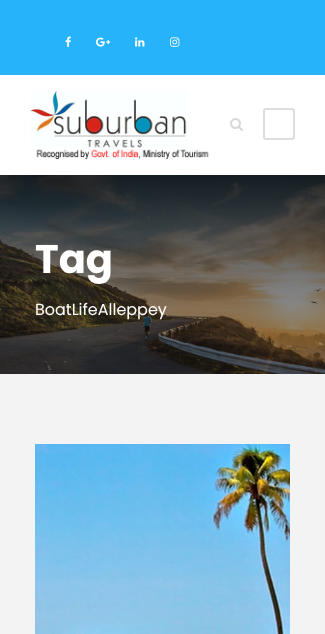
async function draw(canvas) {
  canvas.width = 325;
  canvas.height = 634;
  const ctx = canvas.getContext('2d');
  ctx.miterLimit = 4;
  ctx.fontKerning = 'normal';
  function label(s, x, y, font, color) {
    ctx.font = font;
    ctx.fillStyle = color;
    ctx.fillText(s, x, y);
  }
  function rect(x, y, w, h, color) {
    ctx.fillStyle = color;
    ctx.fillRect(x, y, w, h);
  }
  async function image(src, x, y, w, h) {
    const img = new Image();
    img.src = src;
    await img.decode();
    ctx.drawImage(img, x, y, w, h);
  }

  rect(0, 0, 325, 634, '#fff');
  rect(0, 0, 325, 75, '#27b3f9');
  await image('assets/img1.png', 65, 36, 6, 11);
  await image('assets/img2.png', 96, 37, 15, 10);
  await image('assets/img3.png', 135, 37, 10, 10);
  await image('assets/img4.png', 170, 37, 10, 10);
  await image('assets/img5.png', 30, 90, 179, 70);
  await image('assets/img6.png', 230, 118, 13, 13);
  ctx.beginPath();
  ctx.roundRect(264, 109, 30, 30, 2);
  ctx.strokeStyle = '#ddd';
  ctx.lineWidth = 2;
  ctx.stroke();
  await image('assets/img7.png', 0, 175, 325, 199);
  label('Tag', 35, 273, 'bold 40px Poppins', '#fff');
  label('BoatLifeAlleppey', 35, 315, '16px Poppins', '#fff');
  rect(0, 374, 325, 260, '#f3f3f3');
  await image('assets/img8.png', 35, 444, 255, 190);
}

draw(document.querySelector('canvas'));
